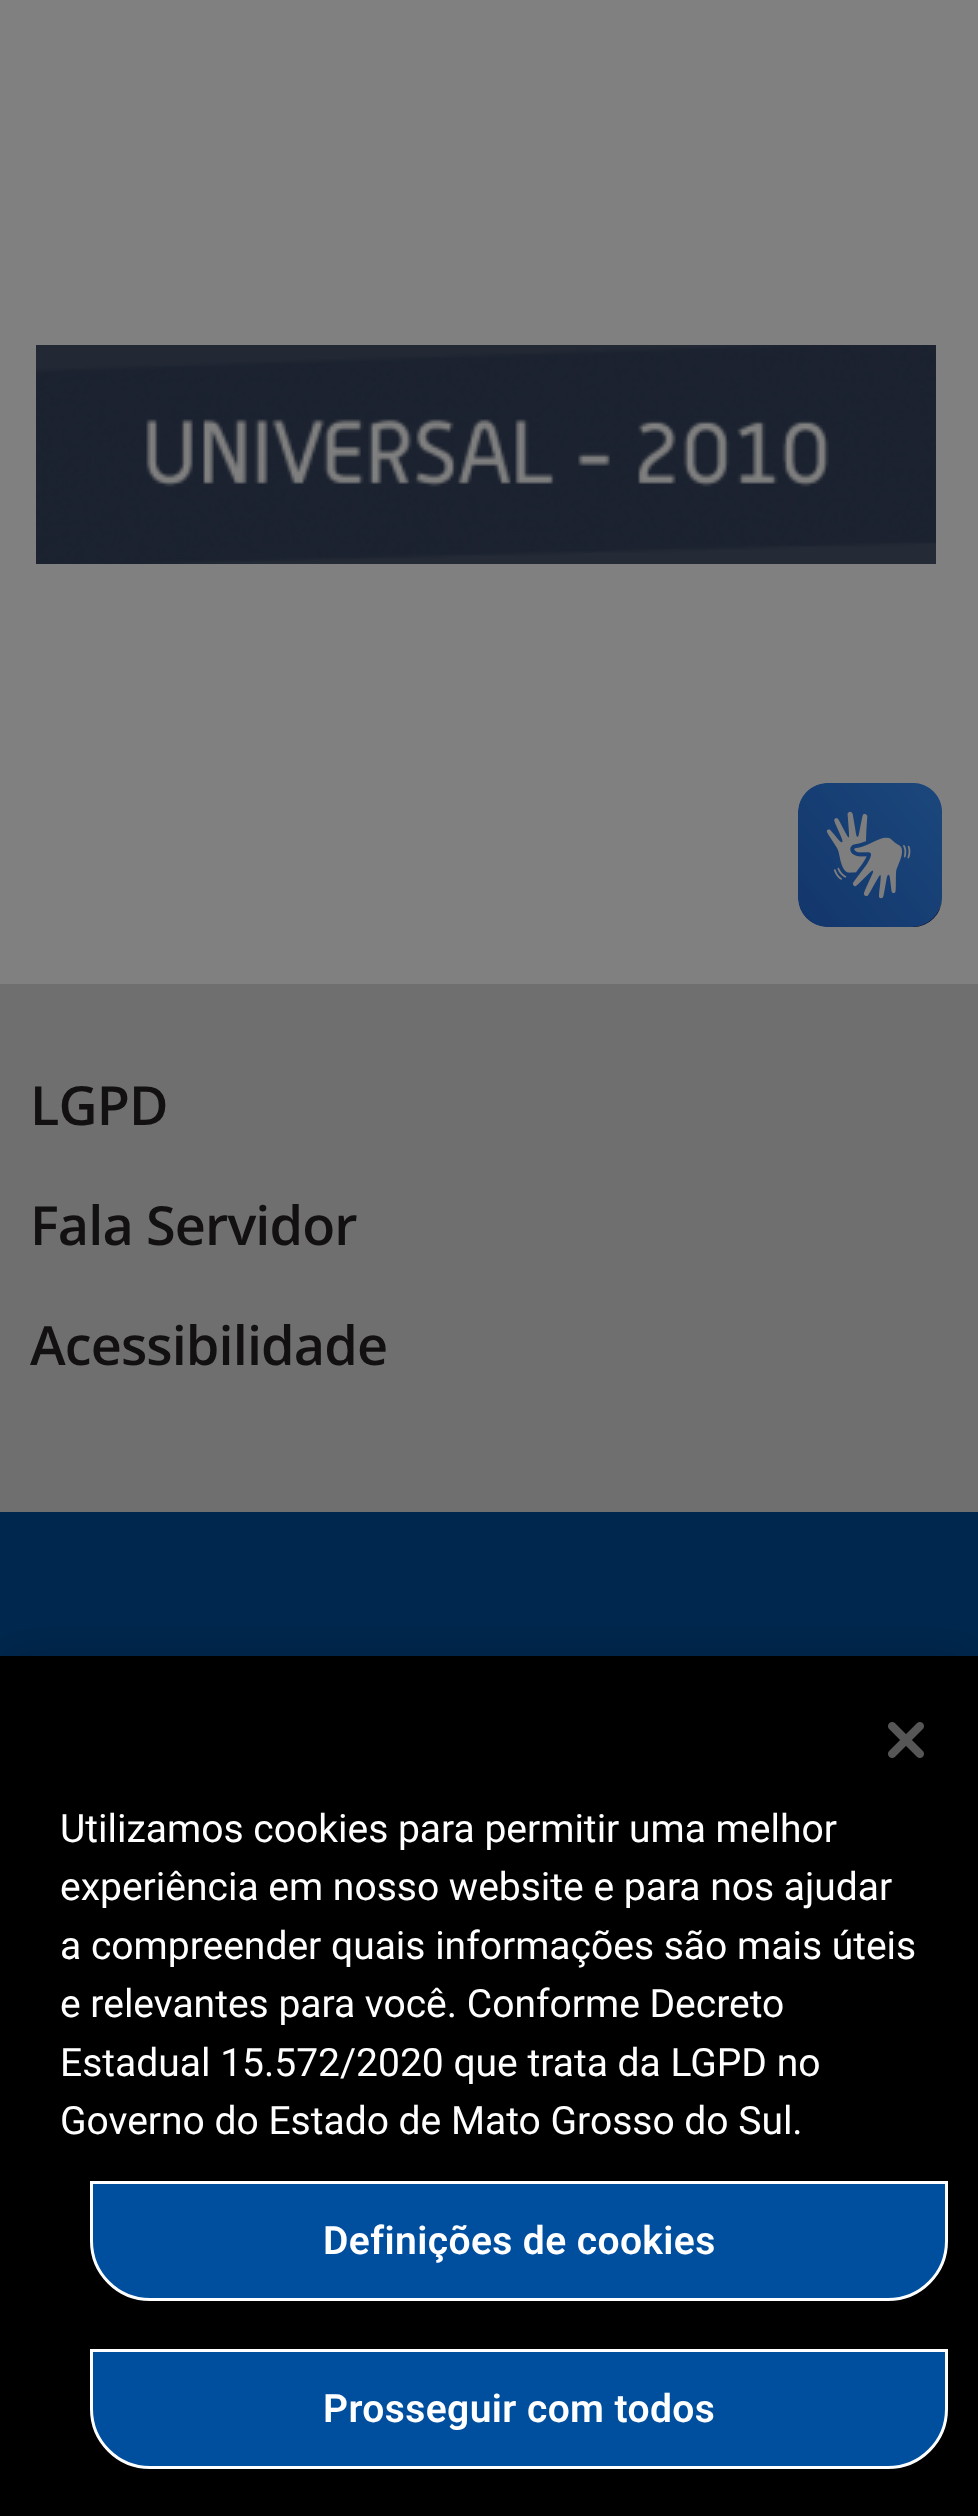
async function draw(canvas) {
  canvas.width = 978;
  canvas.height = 2516;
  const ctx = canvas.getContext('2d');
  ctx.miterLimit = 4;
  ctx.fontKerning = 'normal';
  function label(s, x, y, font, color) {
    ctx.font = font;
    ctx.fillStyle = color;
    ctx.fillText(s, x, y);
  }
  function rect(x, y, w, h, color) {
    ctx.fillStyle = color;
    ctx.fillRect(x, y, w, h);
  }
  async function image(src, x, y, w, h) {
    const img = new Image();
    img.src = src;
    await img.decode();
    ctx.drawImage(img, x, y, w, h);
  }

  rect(0, 0, 978, 2516, '#808080');
  await image('assets/img1.png', 36, 345, 900, 219);
  await image('assets/img2.png', 798, 783, 144, 144);
  await image('assets/img3.png', 798, 783, 144, 144);
  rect(0, 984, 978, 528, '#6f6f6f');
  ctx.letterSpacing = '-0.9px';
  label('LGPD', 30, 1125, '600 54px Open Sans', '#121010');
  label('Fala Servidor', 30, 1245, '600 54px Open Sans', '#121010');
  label('Acessibilidade', 30, 1365, '600 54px Open Sans', '#121010');
  rect(0, 1512, 978, 144, '#00284f');
  ctx.fillStyle = '#00000033';
  ctx.filter = 'blur(27px)';
  ctx.beginPath();
  ctx.rect(0, 1656, 978, 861);
  ctx.fill();
  ctx.filter = 'none';
  rect(0, 1656, 978, 860, '#000');
  await image('assets/img4.png', 888, 1722, 36, 36);
  ctx.letterSpacing = '0px';
  label('Utilizamos cookies para permitir uma melhor', 60, 1842, '39px Roboto', '#fff');
  label('experiência em nosso website e para nos ajudar', 60, 1900, '39px Roboto', '#fff');
  label('a compreender quais informações são mais úteis', 60, 1959, '39px Roboto', '#fff');
  label('e relevantes para você. Conforme Decreto', 60, 2017, '39px Roboto', '#fff');
  label('Estadual 15.572/2020 que trata da LGPD no', 60, 2076, '39px Roboto', '#fff');
  label('Governo do Estado de Mato Grosso do Sul.', 60, 2134, '39px Roboto', '#fff');
  ctx.fillStyle = '#004f9f';
  ctx.beginPath();
  ctx.roundRect(91.5, 2182.5, 855, 117, [0, 0, 58.5, 58.5]);
  ctx.fill();
  ctx.strokeStyle = '#fff';
  ctx.lineWidth = 3;
  ctx.stroke();
  ctx.letterSpacing = '0.4px';
  label('Definições de cookies', 323, 2254, '600 39px Roboto', '#fff');
  ctx.fillStyle = '#004f9f';
  ctx.beginPath();
  ctx.roundRect(91.5, 2350.5, 855, 117, [0, 0, 58.5, 58.5]);
  ctx.fill();
  ctx.stroke();
  label('Prosseguir com todos', 323, 2422, '600 39px Roboto', '#fff');
}

draw(document.querySelector('canvas'));
